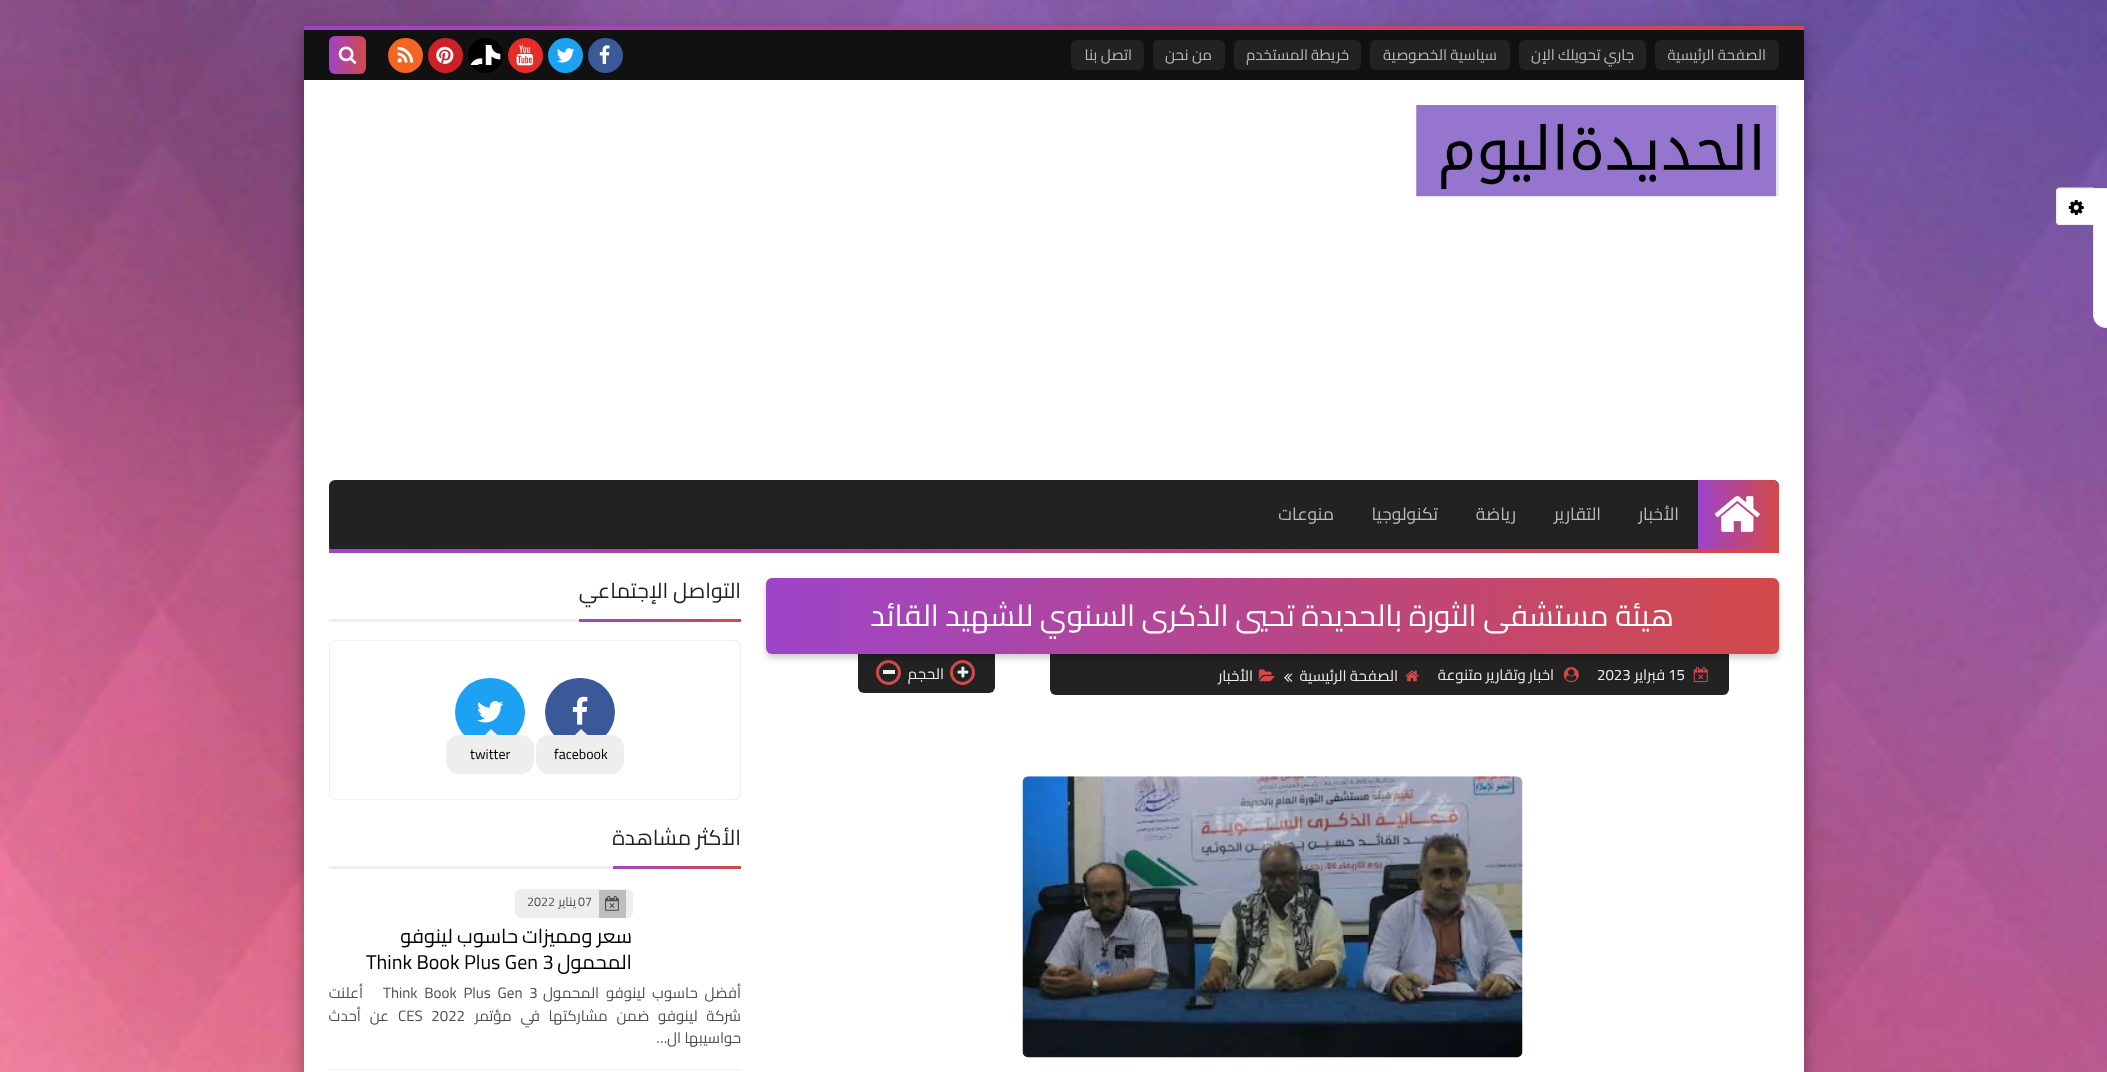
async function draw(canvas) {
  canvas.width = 2107;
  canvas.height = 1072;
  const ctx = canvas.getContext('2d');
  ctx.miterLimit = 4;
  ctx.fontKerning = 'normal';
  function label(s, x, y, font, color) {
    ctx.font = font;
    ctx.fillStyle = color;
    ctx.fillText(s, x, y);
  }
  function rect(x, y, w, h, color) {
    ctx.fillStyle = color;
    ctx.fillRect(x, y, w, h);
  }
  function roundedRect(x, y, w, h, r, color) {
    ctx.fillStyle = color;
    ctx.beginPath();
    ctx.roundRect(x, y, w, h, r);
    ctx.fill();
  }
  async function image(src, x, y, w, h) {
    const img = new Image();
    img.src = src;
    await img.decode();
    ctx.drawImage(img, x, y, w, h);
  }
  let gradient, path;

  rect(0, 0, 2107, 1072, '#fff');
  await image('assets/img1.png', 0, 0, 2107, 1072);
  path = new Path2D('M2093.5 188.5H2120.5V327.5H2106C2099 327.5 2093.5 322 2093.5 315Z');
  ctx.fill(path);
  ctx.strokeStyle = '#eee';
  ctx.stroke(path);
  ctx.beginPath();
  ctx.roundRect(2056, 188, 38, 37, [4, 0, 0, 4]);
  ctx.fill();
  ctx.fillStyle = '#eee';
  path = new Path2D('M2060 187.5H2094V225H2060C2058 225 2056 223.5 2056 221V191C2056 189 2058 187.5 2060 187.5ZM2060 189H2094V224H2060C2058.5 224 2057.5 222.5 2057.5 221V191C2057.5 190 2058.5 189 2060 189Z');
  ctx.fill(path, 'evenodd');
  await image('assets/img2.png', 2068, 200, 16, 15);
  ctx.fillStyle = '#00000030';
  ctx.filter = 'blur(12.5px)';
  ctx.beginPath();
  ctx.rect(304, 34, 1500, 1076);
  ctx.fill();
  ctx.filter = 'none';
  ctx.fillStyle = '#00000033';
  ctx.filter = 'blur(5px)';
  ctx.beginPath();
  ctx.rect(304, 31, 1500, 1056);
  ctx.fill();
  ctx.filter = 'none';
  rect(304, 80, 1500, 992, '#fff');
  gradient = ctx.createLinearGradient(1804, 28, 304, 28);
  gradient.addColorStop(0, '#d24949');
  gradient.addColorStop(1, '#9e44c9');
  ctx.fillStyle = gradient;
  ctx.fillRect(304, 26, 1500, 4);
  rect(304, 30, 1500, 50, '#111');
  roundedRect(1655, 40, 124, 30, 6, '#222');
  ctx.direction = 'rtl';
  label('الصفحة الرئيسية', 1766, 60, '15px Cairo', '#bbb');
  roundedRect(1519, 40, 127, 30, 6, '#222');
  label('جاري تحويلك الإن', 1634, 60, '15px Cairo', '#bbb');
  roundedRect(1370, 40, 140, 30, 6, '#222');
  label('سياسية الخصوصية', 1497, 60, '15px Cairo', '#bbb');
  roundedRect(1234, 40, 127, 30, 6, '#222');
  label('خريطة', 1349, 60, '15px Cairo', '#bbb');
  label('المستخدم', 1308, 60, '15px Cairo', '#bbb');
  roundedRect(1153, 40, 72, 30, 6, '#222');
  label('من نحن', 1212, 60, '15px Cairo', '#bbb');
  roundedRect(1071, 40, 73, 30, 6, '#222');
  label('اتصل بنا', 1132, 60, '15px Cairo', '#bbb');
  ctx.fillStyle = '#3b5998';
  ctx.beginPath();
  ctx.arc(605.5, 55.5, 17.5, 0, 2 * Math.PI);
  ctx.fill();
  await image('assets/img3.png', 599, 45, 11, 19);
  ctx.fillStyle = '#1da1f2';
  ctx.beginPath();
  ctx.arc(565.5, 55.5, 17.5, 0, 2 * Math.PI);
  ctx.fill();
  await image('assets/img4.png', 556, 48, 19, 15);
  ctx.fillStyle = '#e52d27';
  ctx.beginPath();
  ctx.arc(525.5, 55.5, 17.5, 0, 2 * Math.PI);
  ctx.fill();
  await image('assets/img5.png', 516, 45, 18, 21);
  ctx.fillStyle = '#000';
  ctx.beginPath();
  ctx.arc(485.5, 55.5, 17.5, 0, 2 * Math.PI);
  ctx.fill();
  await image('assets/img6.png', 470, 45, 31, 20);
  ctx.fillStyle = '#cc2127';
  ctx.beginPath();
  ctx.arc(445.5, 55.5, 17.5, 0, 2 * Math.PI);
  ctx.fill();
  await image('assets/img7.png', 436, 46, 18, 18);
  ctx.fillStyle = '#f26522';
  ctx.beginPath();
  ctx.arc(405.5, 55.5, 17.5, 0, 2 * Math.PI);
  ctx.fill();
  await image('assets/img8.png', 397, 46, 17, 17);
  gradient = ctx.createLinearGradient(366, 55, 329, 55);
  gradient.addColorStop(0, '#d24949');
  gradient.addColorStop(1, '#9e44c9');
  ctx.fillStyle = gradient;
  ctx.beginPath();
  ctx.roundRect(329, 36, 37, 38, 6);
  ctx.fill();
  await image('assets/img9.png', 338, 46, 19, 18);
  await image('assets/img10.png', 1416, 105, 363, 92);
  roundedRect(329, 480, 1450, 73, 6, '#222');
  gradient = ctx.createLinearGradient(1779, 514, 1698, 514);
  gradient.addColorStop(0, '#d24949');
  gradient.addColorStop(1, '#9e44c9');
  ctx.fillStyle = gradient;
  ctx.beginPath();
  ctx.roundRect(1698, 480, 81, 69, [0, 6, 0, 0]);
  ctx.fill();
  await image('assets/img11.png', 1714, 496, 46, 36);
  label('الأخبار', 1679, 520, '17.5px Cairo', '#bbb');
  label('التقارير', 1601, 520, '17.5px Cairo', '#bbb');
  label('رياضة', 1516, 520, '17.5px Cairo', '#bbb');
  label('تكنولوجيا', 1438, 520, '17.5px Cairo', '#bbb');
  label('منوعات', 1334, 520, '17.5px Cairo', '#bbb');
  gradient = ctx.createLinearGradient(1779, 551, 329, 551);
  gradient.addColorStop(0, '#d24949');
  gradient.addColorStop(1, '#9e44c9');
  ctx.fillStyle = gradient;
  ctx.fillRect(329, 549, 1450, 4);
  ctx.fillStyle = '#222';
  ctx.beginPath();
  ctx.roundRect(1050, 654, 679, 41, [0, 0, 6, 6]);
  ctx.fill();
  await image('assets/img12.png', 1693, 667, 15, 16);
  await image('assets/img13.png', 1563, 667, 16, 16);
  ctx.beginPath();
  ctx.roundRect(858, 654, 137, 39, [0, 0, 6, 6]);
  ctx.fill();
  ctx.beginPath();
  ctx.arc(962.5, 672.5, 11, 0, 2 * Math.PI);
  ctx.strokeStyle = '#d24949';
  ctx.lineWidth = 3;
  ctx.stroke();
  await image('assets/img17.png', 957, 666, 12, 12);
  ctx.beginPath();
  ctx.arc(888.5, 672.5, 11, 0, 2 * Math.PI);
  ctx.stroke();
  ctx.fillStyle = '#00000033';
  ctx.filter = 'blur(3px)';
  ctx.beginPath();
  ctx.roundRect(766, 581, 1013, 77, 6);
  ctx.fill();
  ctx.filter = 'none';
  gradient = ctx.createLinearGradient(1779, 616, 766, 616);
  gradient.addColorStop(0, '#d24949');
  gradient.addColorStop(1, '#9e44c9');
  ctx.fillStyle = gradient;
  ctx.beginPath();
  ctx.roundRect(766, 578, 1013, 76, 6);
  ctx.fill();
  label('هيئة مستشفى الثورة بالحديدة تحيي الذكرى السنوي للشهيد القائد', 1674, 626, '30px Cairo', '#fff');
  ctx.direction = 'ltr';
  label('15', 1668, 680, '15px Cairo', '#eee');
  ctx.direction = 'rtl';
  label('فبراير', 1665, 680, '15px Cairo', '#eee');
  ctx.direction = 'ltr';
  label('2023', 1597, 680, '15px Cairo', '#eee');
  ctx.direction = 'rtl';
  label('اخبار وتقارير متنوعة', 1554, 680, '15px Cairo', '#eee');
  await image('assets/img14.png', 1405, 670, 14, 12);
  label('الصفحة الرئيسية', 1398, 681, '15px Cairo', '#eee');
  await image('assets/img15.png', 1284, 673, 9, 9);
  await image('assets/img16.png', 1258, 669, 17, 13);
  label('الأخبار', 1253, 681, '15px Cairo', '#eee');
  label('الحجم', 944, 679, '15px Cairo', '#eee');
  rect(883, 670, 12, 4, '#eee');
  await image('assets/img18.png', 1022, 776, 501, 282);
  rect(329, 619, 250, 3, '#eee');
  label('التواصل الإجتماعي', 741, 598, '21.25px Cairo', '#222');
  gradient = ctx.createLinearGradient(741, 620, 579, 620);
  gradient.addColorStop(0, '#d24949');
  gradient.addColorStop(1, '#9e44c9');
  ctx.fillStyle = gradient;
  ctx.fillRect(579, 619, 162, 3);
  ctx.beginPath();
  ctx.roundRect(329.5, 640.5, 411, 159, 5.5);
  ctx.strokeStyle = '#eee';
  ctx.lineWidth = 1;
  ctx.stroke();
  roundedRect(545, 678, 70, 68, 34, '#3b5998');
  await image('assets/img19.png', 572, 696, 16, 29);
  roundedRect(536, 735, 88, 39, 13, '#eee');
  path = new Path2D('M587.5 735H575L581 729Z');
  ctx.fill(path);
  ctx.direction = 'ltr';
  label('facebook', 554, 759, '14px Cairo', '#000');
  roundedRect(455, 678, 70, 68, 34, '#1da1f2');
  await image('assets/img20.png', 477, 701, 27, 22);
  roundedRect(446, 735, 88, 39, 13, '#eee');
  path = new Path2D('M497.5 735H485L491 729Z');
  ctx.fill(path);
  label('twitter', 470, 759, '14px Cairo', '#000');
  rect(329, 866, 284, 3, '#eee');
  ctx.direction = 'rtl';
  label('الأكثر مشاهدة', 741, 845, '21.25px Cairo', '#222');
  gradient = ctx.createLinearGradient(741, 868, 613, 868);
  gradient.addColorStop(0, '#d24949');
  gradient.addColorStop(1, '#9e44c9');
  ctx.fillStyle = gradient;
  ctx.fillRect(613, 866, 128, 3);
  rect(329, 1069, 412, 1, '#eee');
  roundedRect(515, 889, 118, 29, 6, '#eee');
  rect(599, 890, 27, 28, '#bebebe');
  await image('assets/img21.png', 605, 895, 14, 16);
  ctx.direction = 'ltr';
  label('07', 578, 906, '12.5px Cairo', '#4f4f4f');
  ctx.direction = 'rtl';
  label('يناير', 576, 906, '12.5px Cairo', '#4f4f4f');
  ctx.direction = 'ltr';
  label('2022', 527, 906, '12.5px Cairo', '#4f4f4f');
  ctx.direction = 'rtl';
  label('سعر ومميزات', 632, 943, '20px Cairo', '#000');
  label('حاسوب لينوفو', 518, 943, '20px Cairo', '#000');
  label('المحمول', 632, 969, '20px Cairo', '#000');
  ctx.direction = 'ltr';
  label('Think Book Plus Gen 3', 366, 969, '20px Cairo', '#000');
  ctx.wordSpacing = '3.5px';
  ctx.direction = 'rtl';
  label('أفضل حاسوب لينوفو المحمول', 741, 998, '15px Cairo', '#4f4f4f');
  ctx.direction = 'ltr';
  label('Think Book Plus Gen 3', 383, 998, '15px Cairo', '#4f4f4f');
  ctx.wordSpacing = '0px';
  ctx.direction = 'rtl';
  label('أعلنت', 363, 998, '15px Cairo', '#4f4f4f');
  ctx.wordSpacing = '5.5px';
  label('شركة لينوفو ضمن مشاركتها في مؤتمر', 741, 1021, '15px Cairo', '#4f4f4f');
  ctx.direction = 'ltr';
  label('CES 2022', 398, 1021, '15px Cairo', '#4f4f4f');
  ctx.direction = 'rtl';
  label('عن أحدث', 389, 1021, '15px Cairo', '#4f4f4f');
  ctx.wordSpacing = '0px';
  label('حواسيبها ال…', 741, 1043, '15px Cairo', '#4f4f4f');
}

draw(document.querySelector('canvas'));
